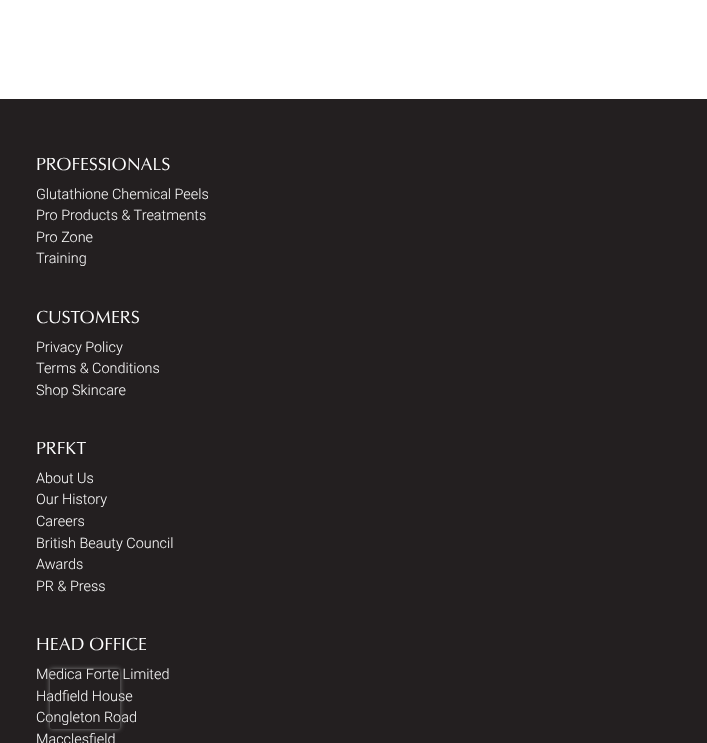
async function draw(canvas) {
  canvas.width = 707;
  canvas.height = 743;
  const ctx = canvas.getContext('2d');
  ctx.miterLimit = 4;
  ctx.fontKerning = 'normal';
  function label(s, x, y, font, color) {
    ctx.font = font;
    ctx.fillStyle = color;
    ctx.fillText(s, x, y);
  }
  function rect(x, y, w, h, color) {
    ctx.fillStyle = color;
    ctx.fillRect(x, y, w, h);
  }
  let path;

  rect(0, 0, 707, 743, '#fff');
  rect(0, 99, 707, 644, '#231f20');
  label('PROFESSIONALS', 36, 170, '18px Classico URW', '#fff');
  label('Glutathione Chemical Peels', 36, 199, '300 14.4px Roboto', '#fff');
  label('Pro Products & Treatments', 36, 220, '300 14.4px Roboto', '#fff');
  label('Pro Zone', 36, 242, '300 14.4px Roboto', '#fff');
  label('Training', 36, 263, '300 14.4px Roboto', '#fff');
  label('CUSTOMERS', 36, 323, '18px Classico URW', '#fff');
  label('Privacy Policy', 36, 352, '300 14.4px Roboto', '#fff');
  label('Terms & Conditions', 36, 373, '300 14.4px Roboto', '#fff');
  label('Shop Skincare', 36, 395, '300 14.4px Roboto', '#fff');
  label('PRFKT', 36, 454, '18px Classico URW', '#fff');
  label('About Us', 36, 483, '300 14.4px Roboto', '#fff');
  label('Our History', 36, 504, '300 14.4px Roboto', '#fff');
  label('Careers', 36, 526, '300 14.4px Roboto', '#fff');
  label('British Beauty Council', 36, 548, '300 14.4px Roboto', '#fff');
  label('Awards', 36, 569, '300 14.4px Roboto', '#fff');
  label('PR & Press', 36, 591, '300 14.4px Roboto', '#fff');
  label('HEAD OFFICE', 36, 650, '18px Classico URW', '#fff');
  label('Medica Forte Limited', 36, 679, '300 14.4px Roboto', '#fff');
  label('Hadfield House', 36, 701, '300 14.4px Roboto', '#fff');
  label('Congleton Road', 36, 722, '300 14.4px Roboto', '#fff');
  label('Macclesfield', 36, 744, '300 14.4px Roboto', '#fff');
  ctx.save();
  path = new Path2D('M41 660H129V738H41ZM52 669H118C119 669 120 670 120 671V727C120 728 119 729 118 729H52C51 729 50 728 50 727V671C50 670 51 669 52 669Z');
  ctx.clip(path, 'evenodd');
  ctx.fillStyle = '#808080';
  ctx.filter = 'blur(2.5px)';
  ctx.beginPath();
  ctx.roundRect(50, 669, 70, 60, 2);
  ctx.fill();
  ctx.filter = 'none';
  ctx.restore();
}

draw(document.querySelector('canvas'));
